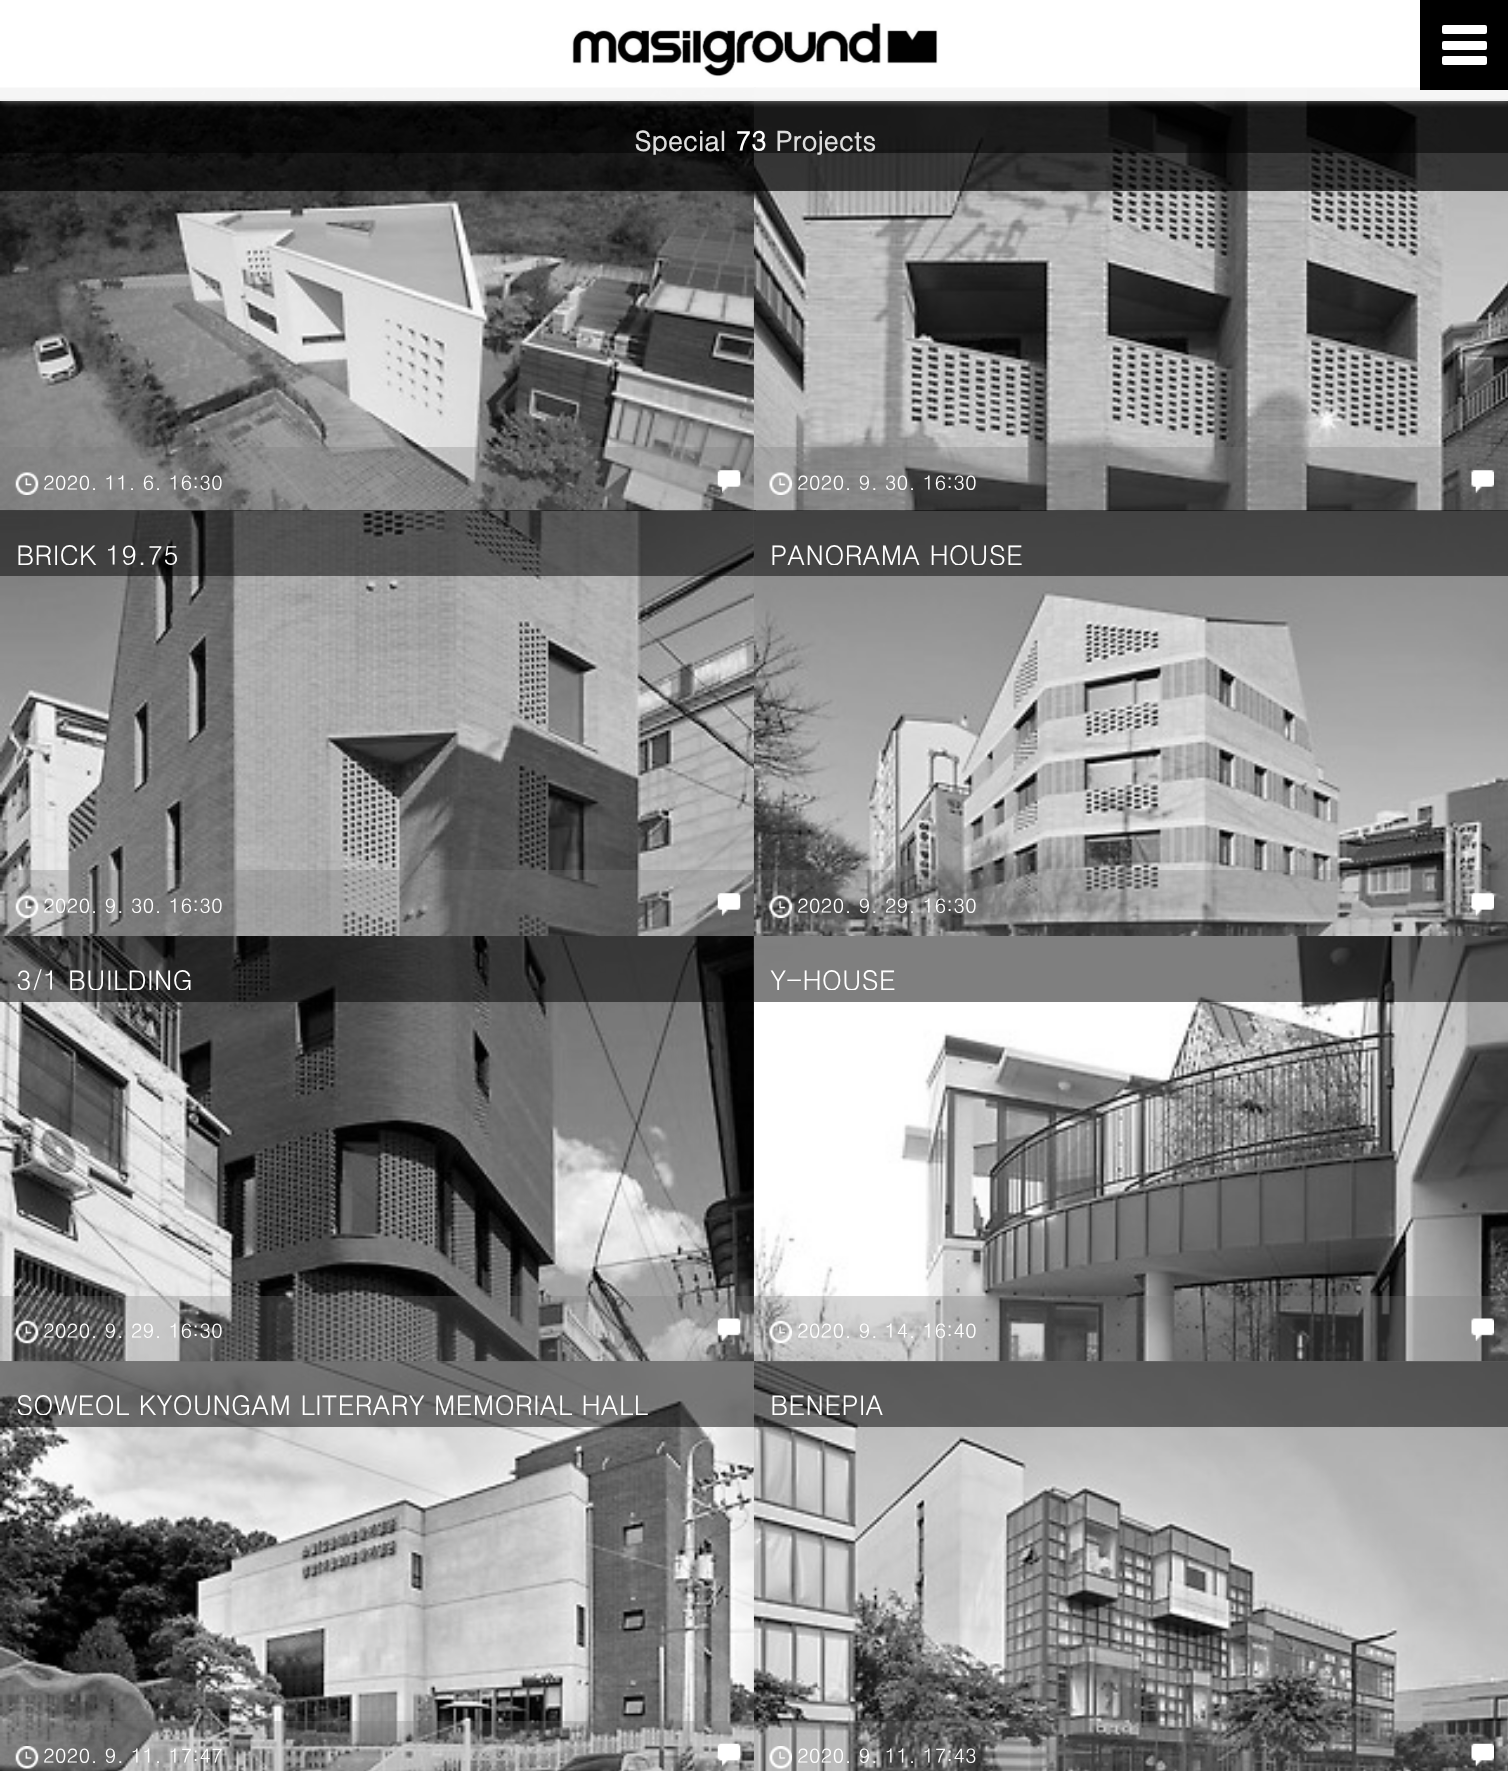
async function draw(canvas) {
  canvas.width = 1508;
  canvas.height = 1771;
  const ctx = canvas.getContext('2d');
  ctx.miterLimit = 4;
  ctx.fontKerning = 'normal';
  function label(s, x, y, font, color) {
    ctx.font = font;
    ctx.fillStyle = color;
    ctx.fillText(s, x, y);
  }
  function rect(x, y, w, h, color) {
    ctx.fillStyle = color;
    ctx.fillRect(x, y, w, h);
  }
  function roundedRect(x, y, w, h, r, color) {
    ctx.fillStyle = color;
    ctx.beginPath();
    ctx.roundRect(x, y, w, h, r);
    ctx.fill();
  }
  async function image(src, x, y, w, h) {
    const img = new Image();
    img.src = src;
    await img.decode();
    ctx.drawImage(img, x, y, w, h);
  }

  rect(0, 0, 1508, 1771, '#eee');
  await image('assets/img2.png', 0, 87, 756, 424);
  rect(0, 87, 756, 66, '#00000080');
  rect(0, 447, 754, 64, '#7b7b7b4d');
  await image('assets/img5.png', 753, 87, 755, 424);
  rect(754, 87, 754, 66, '#00000080');
  rect(0, 88, 1508, 103, '#000000b3');
  ctx.save();
  ctx.beginPath();
  ctx.rect(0, 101, 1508, 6);
  ctx.clip();
  ctx.fillStyle = '#f0f0f080';
  ctx.filter = 'blur(3.5px)';
  ctx.beginPath();
  ctx.rect(0, 0, 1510, 101);
  ctx.fill();
  ctx.filter = 'none';
  ctx.restore();
  rect(0, 0, 1508, 99, '#ffffff99');
  rect(0, 0, 1508, 99, '#ffffffe6');
  rect(0, 99, 1508, 2, '#efefef');
  await image('assets/img1.png', 572, 22, 366, 55);
  rect(1420, 0, 88, 90, '#000');
  roundedRect(1442, 25, 45, 9, 2, '#fff');
  roundedRect(1442, 41, 45, 9, 2, '#fff');
  roundedRect(1442, 56, 45, 9, 2, '#fff');
  label('Special', 634, 151, 'bold 27px Dotum', '#ddd');
  label('73', 735, 151, 'bold 27px Dotum', '#fff');
  label('Projects', 775, 151, 'bold 27px Dotum', '#ddd');
  await image('assets/img3.png', 15, 472, 24, 23);
  label('2020. 11. 6. 16:30', 43, 490, '20.25px Dotum', '#fff');
  await image('assets/img4.png', 717, 470, 24, 23);
  rect(754, 447, 754, 64, '#7b7b7b4d');
  await image('assets/img6.png', 769, 472, 23, 23);
  label('2020. 9. 30. 16:30', 797, 490, '20.25px Dotum', '#fff');
  await image('assets/img7.png', 1471, 470, 23, 23);
  await image('assets/img8.png', 0, 510, 756, 426);
  rect(0, 510, 756, 66, '#00000080');
  ctx.save();
  ctx.beginPath();
  ctx.rect(11, 529, 734, 36);
  ctx.clip();
  label('BRICK 19.75', 16, 565, '27px Dotum', '#fff');
  ctx.restore();
  rect(0, 870, 754, 66, '#7b7b7b4d');
  await image('assets/img9.png', 15, 895, 24, 23);
  label('2020. 9. 30. 16:30', 43, 913, '20.25px Dotum', '#fff');
  await image('assets/img10.png', 717, 893, 24, 23);
  await image('assets/img11.png', 753, 510, 755, 426);
  rect(754, 510, 754, 66, '#00000080');
  ctx.save();
  ctx.beginPath();
  ctx.rect(765, 529, 734, 36);
  ctx.clip();
  label('PANORAMA HOUSE', 770, 565, '27px Dotum', '#fff');
  ctx.restore();
  rect(754, 870, 754, 66, '#7b7b7b4d');
  await image('assets/img12.png', 769, 895, 23, 23);
  label('2020. 9. 29. 16:30', 797, 913, '20.25px Dotum', '#fff');
  await image('assets/img13.png', 1471, 893, 23, 23);
  await image('assets/img14.png', 0, 936, 756, 426);
  rect(0, 936, 754, 66, '#00000080');
  ctx.save();
  ctx.beginPath();
  ctx.rect(11, 954, 734, 36);
  ctx.clip();
  label('3/1 BUILDING', 16, 990, '27px Dotum', '#fff');
  ctx.restore();
  rect(0, 1296, 754, 65, '#7b7b7b4d');
  await image('assets/img15.png', 15, 1320, 24, 24);
  label('2020. 9. 29. 16:30', 43, 1338, '20.25px Dotum', '#fff');
  await image('assets/img16.png', 717, 1318, 24, 23);
  await image('assets/img17.png', 753, 936, 755, 426);
  rect(754, 936, 754, 66, '#00000080');
  ctx.save();
  ctx.beginPath();
  ctx.rect(765, 954, 734, 36);
  ctx.clip();
  label('Y-HOUSE', 770, 990, '27px Dotum', '#fff');
  ctx.restore();
  rect(754, 1296, 754, 65, '#7b7b7b4d');
  await image('assets/img18.png', 769, 1320, 23, 24);
  label('2020. 9. 14. 16:40', 797, 1338, '20.25px Dotum', '#fff');
  await image('assets/img19.png', 1471, 1318, 23, 23);
  await image('assets/img20.png', 0, 1361, 756, 410);
  rect(0, 1361, 756, 66, '#00000080');
  ctx.save();
  ctx.beginPath();
  ctx.rect(11, 1379, 734, 36);
  ctx.clip();
  label('SOWEOL KYOUNGAM LITERARY MEMORIAL HALL', 16, 1415, '27px Dotum', '#fff');
  ctx.restore();
  rect(0, 1721, 754, 50, '#7b7b7b4d');
  await image('assets/img21.png', 15, 1746, 24, 23);
  label('2020. 9. 11. 17:47', 43, 1763, '20.25px Dotum', '#fff');
  await image('assets/img22.png', 717, 1743, 24, 24);
  await image('assets/img23.png', 753, 1361, 755, 410);
  rect(754, 1361, 754, 66, '#00000080');
  label('BENEPIA', 770, 1415, '27px Dotum', '#fff');
  rect(754, 1721, 754, 50, '#7b7b7b4d');
  await image('assets/img24.png', 769, 1746, 23, 23);
  label('2020. 9. 11. 17:43', 797, 1763, '20.25px Dotum', '#fff');
  await image('assets/img25.png', 1471, 1743, 23, 24);
}

draw(document.querySelector('canvas'));
